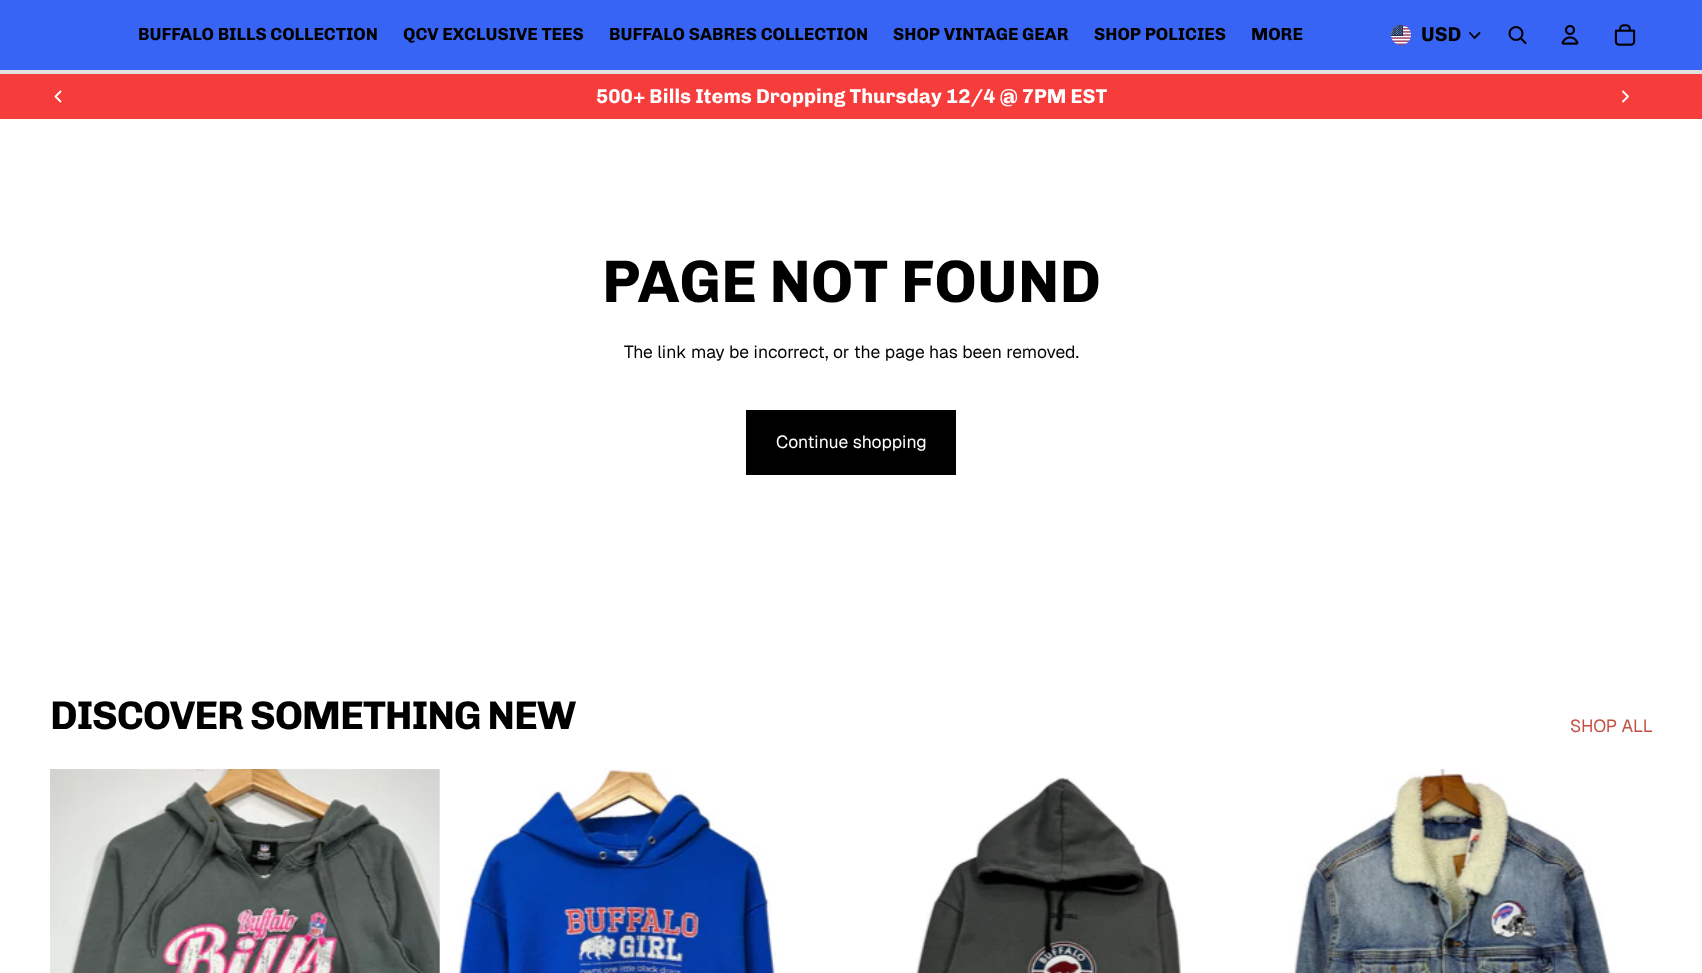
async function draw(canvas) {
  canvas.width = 1702;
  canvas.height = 973;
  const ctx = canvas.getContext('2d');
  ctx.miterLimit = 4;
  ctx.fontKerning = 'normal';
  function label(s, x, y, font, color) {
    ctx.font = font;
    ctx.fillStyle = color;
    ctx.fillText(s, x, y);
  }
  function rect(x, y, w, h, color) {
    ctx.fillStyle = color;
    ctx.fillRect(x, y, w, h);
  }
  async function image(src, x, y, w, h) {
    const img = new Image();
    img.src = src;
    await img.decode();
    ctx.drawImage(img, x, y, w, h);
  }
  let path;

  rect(0, 0, 1702, 973, '#fff');
  rect(0, 0, 1702, 70, '#3764f5');
  rect(0, 70, 1702, 4, '#e1e1e1');
  label('BUFFALO BILLS COLLECTION', 138, 40, 'bold 17.5px Chivo', '#000');
  label('QCV EXCLUSIVE TEES', 403, 40, 'bold 17.5px Chivo', '#000');
  label('BUFFALO SABRES COLLECTION', 609, 40, 'bold 17.5px Chivo', '#000');
  label('SHOP VINTAGE GEAR', 893, 40, 'bold 17.5px Chivo', '#000');
  label('SHOP POLICIES', 1094, 40, 'bold 17.5px Chivo', '#000');
  label('MORE', 1251, 40, 'bold 17.5px Chivo', '#000');
  await image('assets/img1.png', 1391, 25, 20, 20);
  label('USD', 1421, 41, 'bold 20px Chivo', '#000');
  path = new Path2D('M1479.5 33L1474.5 38L1470 33');
  ctx.strokeStyle = '#000';
  ctx.lineWidth = 1.8;
  ctx.lineCap = 'round';
  ctx.lineJoin = 'round';
  ctx.stroke(path);
  ctx.beginPath();
  ctx.arc(1516, 33.5, 6.5, 0, 2 * Math.PI);
  ctx.lineWidth = 2.1;
  ctx.stroke();
  path = new Path2D('M1521 38.5L1525.5 43');
  ctx.stroke(path);
  await image('assets/img2.png', 1561, 25, 18, 20);
  await image('assets/img3.png', 1614, 24, 22, 22);
  rect(0, 74, 1702, 45, '#f73c3c');
  label('500+ Bills Items Dropping Thursday 12/4 @ 7PM EST', 596, 103, 'bold 20px Chivo', '#fff');
  path = new Path2D('M60.5 91.5L55.5 96.5L60.5 101.5');
  ctx.strokeStyle = '#fff';
  ctx.lineWidth = 1.8;
  ctx.stroke(path);
  path = new Path2D('M1623 91.5L1628 96.5L1623 101.5');
  ctx.stroke(path);
  label('PAGE NOT FOUND', 602, 302, 'bold 60px Chivo', '#000');
  label('The link may be incorrect, or the page has been removed.', 624, 358, '17.5px Geist', '#000');
  rect(746, 410, 210, 65, '#000');
  label('Continue shopping', 776, 448, '17.5px Geist', '#fff');
  ctx.letterSpacing = '-1.2px';
  label('DISCOVER SOMETHING NEW', 50, 729, 'bold 40px Chivo', '#000');
  ctx.letterSpacing = '0px';
  label('SHOP ALL', 1570, 732, '17.5px Geist', '#c15045');
  await image('assets/img4.png', 50, 769, 390, 204);
  await image('assets/img5.png', 458, 769, 319, 204);
  await image('assets/img6.png', 915, 777, 266, 196);
  await image('assets/img7.png', 1294, 769, 317, 204);
}

draw(document.querySelector('canvas'));
